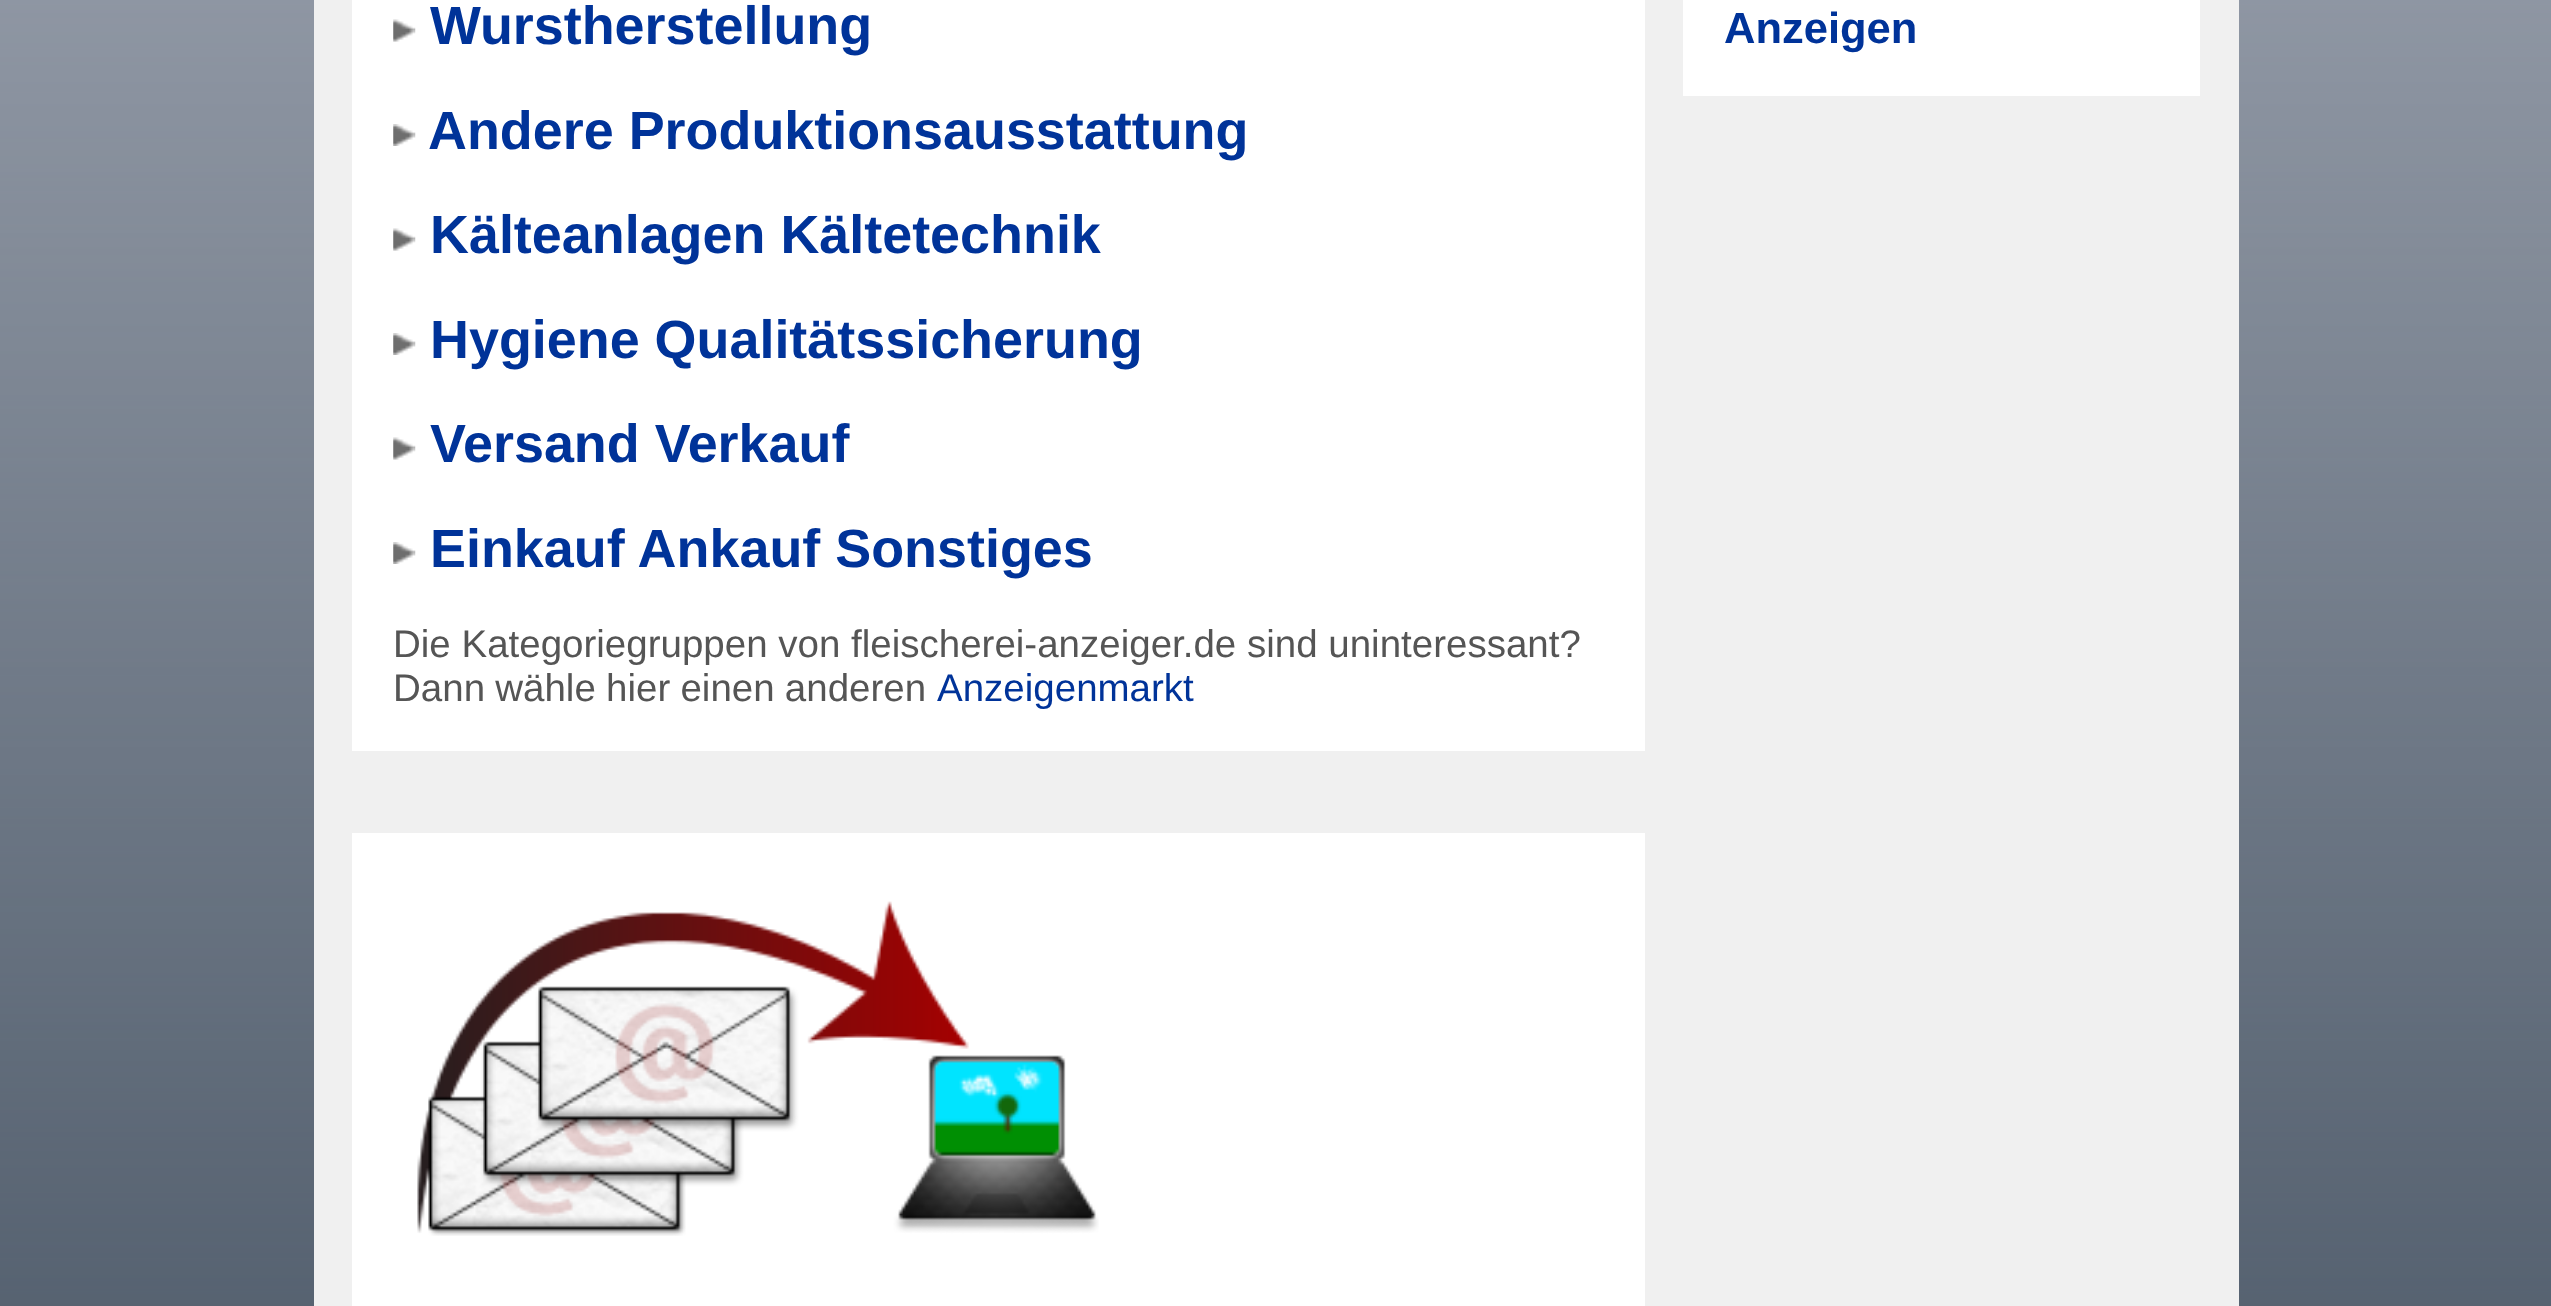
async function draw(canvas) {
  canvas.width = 2551;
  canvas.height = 1306;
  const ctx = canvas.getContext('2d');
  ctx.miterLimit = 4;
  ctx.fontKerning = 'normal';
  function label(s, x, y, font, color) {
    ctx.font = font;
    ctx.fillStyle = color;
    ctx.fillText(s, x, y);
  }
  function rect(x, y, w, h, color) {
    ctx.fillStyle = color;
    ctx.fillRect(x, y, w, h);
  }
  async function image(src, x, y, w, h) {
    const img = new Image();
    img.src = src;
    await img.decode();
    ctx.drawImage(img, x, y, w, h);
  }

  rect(0, 0, 2551, 1306, '#fff');
  await image('assets/img1.png', 0, 0, 2551, 1306);
  rect(314, 0, 1925, 1306, '#f0f0f0');
  rect(352, 0, 1293, 751, '#fff');
  await image('assets/img2.png', 393, 19, 23, 23);
  label('Wurstherstellung', 430, 44, 'bold 53.9px Liberation Sans', '#039');
  await image('assets/img3.png', 393, 124, 23, 22);
  label('Andere Produktionsausstattung', 428, 149, 'bold 53.9px Liberation Sans', '#039');
  await image('assets/img2.png', 393, 228, 23, 23);
  label('Kälteanlagen Kältetechnik', 430, 253, 'bold 53.9px Liberation Sans', '#039');
  await image('assets/img3.png', 393, 333, 23, 22);
  label('Hygiene Qualitätssicherung', 430, 358, 'bold 53.9px Liberation Sans', '#039');
  await image('assets/img2.png', 393, 437, 23, 23);
  label('Versand Verkauf', 430, 462, 'bold 53.9px Liberation Sans', '#039');
  await image('assets/img3.png', 393, 542, 23, 22);
  label('Einkauf Ankauf Sonstiges', 430, 567, 'bold 53.9px Liberation Sans', '#039');
  label('Die Kategoriegruppen von fleischerei-anzeiger.de sind uninteressant?', 393, 657, '38.5px Liberation Sans', '#555');
  ctx.wordSpacing = '-0.5px';
  label('Dann wähle hier einen anderen', 393, 701, '38.5px Liberation Sans', '#555');
  ctx.wordSpacing = '0px';
  label('Anzeigenmarkt', 937, 701, '38.5px Liberation Sans', '#039');
  rect(352, 833, 1293, 473, '#fff');
  await image('assets/img4.png', 417, 901, 682, 335);
  rect(1683, 0, 517, 96, '#fff');
  label('Anzeigen', 1724, 43, 'bold 43.5px Liberation Sans', '#039');
}

draw(document.querySelector('canvas'));
